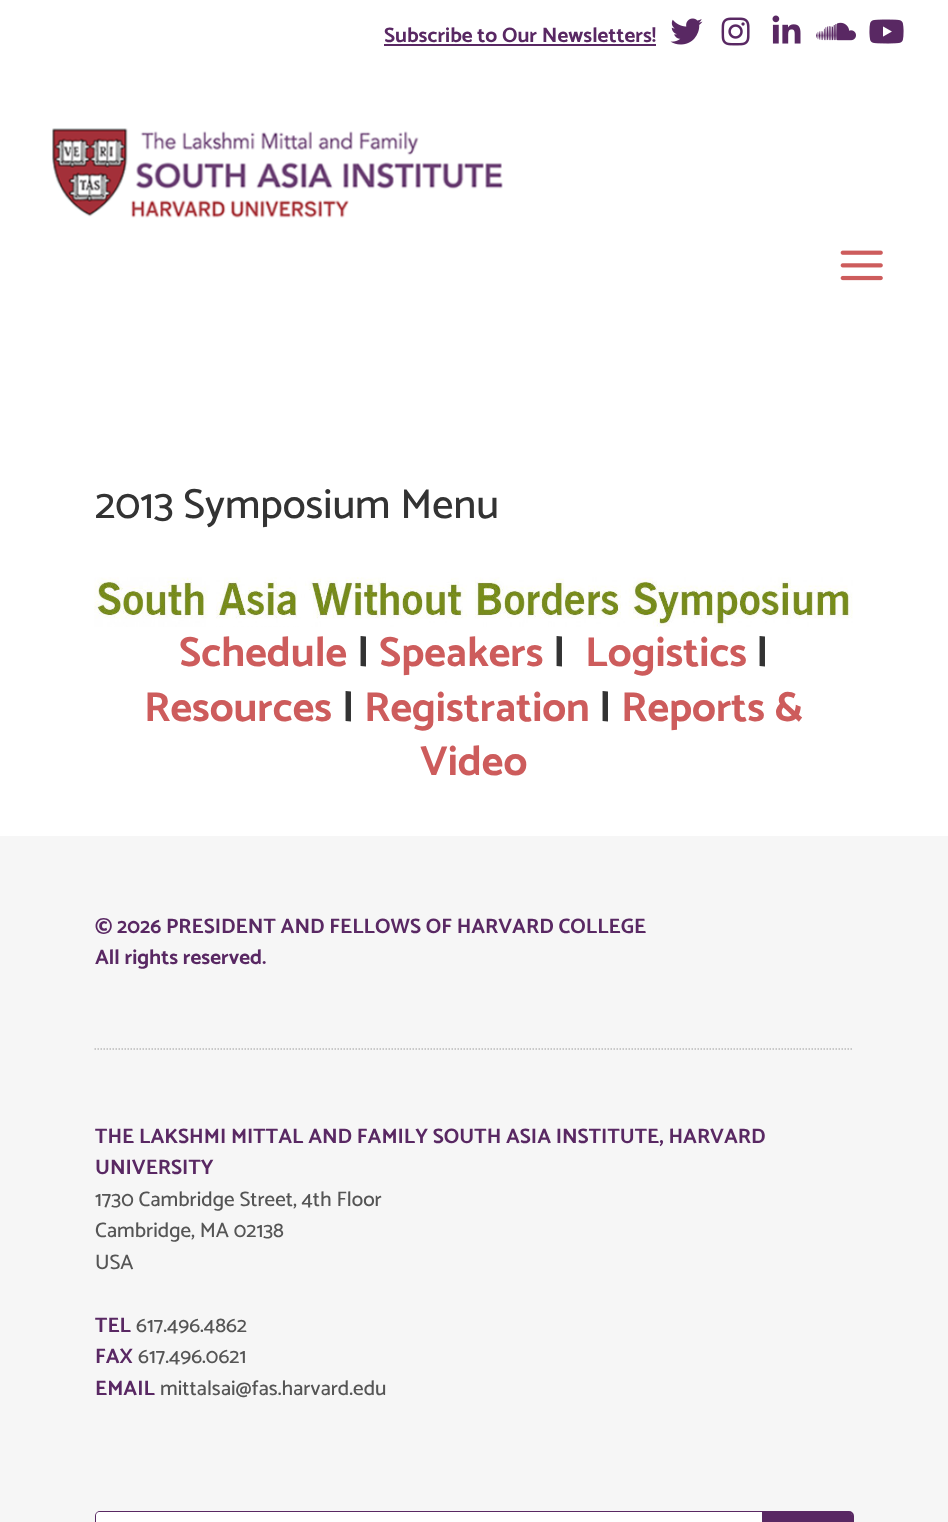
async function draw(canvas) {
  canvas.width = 948;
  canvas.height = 1522;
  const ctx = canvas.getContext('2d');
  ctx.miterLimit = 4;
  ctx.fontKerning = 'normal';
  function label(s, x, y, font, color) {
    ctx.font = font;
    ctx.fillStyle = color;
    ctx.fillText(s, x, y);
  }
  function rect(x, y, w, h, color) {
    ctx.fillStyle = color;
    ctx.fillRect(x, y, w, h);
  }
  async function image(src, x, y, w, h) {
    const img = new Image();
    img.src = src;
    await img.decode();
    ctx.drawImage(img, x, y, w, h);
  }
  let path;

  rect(0, 0, 948, 1522, '#fff');
  label('Subscribe to Our Newsletters!', 384, 42, '100 21px "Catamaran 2"', '#592863');
  rect(384, 44, 272, 2, '#592863');
  await image('assets/img1.png', 670, 18, 33, 27);
  await image('assets/img2.png', 721, 17, 29, 29);
  await image('assets/img3.png', 772, 15, 29, 29);
  await image('assets/img4.png', 816, 22, 40, 19);
  await image('assets/img5.png', 869, 19, 35, 25);
  await image('assets/img6.png', 52, 128, 451, 90);
  await image('assets/img7.png', 840, 250, 43, 31);
  label('2013 Symposium Menu', 95, 518, '100 42px Catamaran', '#333');
  await image('assets/img8.png', 94, 577, 759, 50);
  label('Schedule', 179, 666, '100 42px "Catamaran 2"', '#cd5c5c');
  label('|', 357, 666, '100 42px "Catamaran 2"', '#333');
  label('Speakers', 379, 666, '100 42px "Catamaran 2"', '#cd5c5c');
  label('|', 553, 666, '100 42px "Catamaran 2"', '#333');
  label('Logistics', 585, 666, '100 42px "Catamaran 2"', '#cd5c5c');
  label('|', 756, 666, '100 42px "Catamaran 2"', '#333');
  label('Resources', 144, 721, '100 42px "Catamaran 2"', '#cd5c5c');
  label('|', 342, 721, '100 42px "Catamaran 2"', '#333');
  label('Registration', 364, 721, '100 42px "Catamaran 2"', '#cd5c5c');
  label('|', 599, 721, '100 42px "Catamaran 2"', '#333');
  label('Reports &', 621, 721, '100 42px "Catamaran 2"', '#cd5c5c');
  label('Video', 420, 775, '100 42px "Catamaran 2"', '#cd5c5c');
  rect(0, 836, 948, 686, '#f6f6f6');
  path = new Path2D('M94.5 1049H853.5');
  ctx.strokeStyle = '#bbb';
  ctx.lineWidth = 1.5;
  ctx.setLineDash([1.5, 1.5]);
  ctx.stroke(path);
  label('© 2026 PRESIDENT AND FELLOWS OF HARVARD COLLEGE', 95, 933, '100 21px "Catamaran 2"', '#592863');
  label('All rights reserved.', 95, 964, '100 21px "Catamaran 2"', '#592863');
  label('THE LAKSHMI MITTAL AND FAMILY SOUTH ASIA INSTITUTE, HARVARD', 95, 1143, '100 21px "Catamaran 2"', '#592863');
  label('UNIVERSITY', 95, 1174, '100 21px "Catamaran 2"', '#592863');
  label('1730 Cambridge Street, 4th Floor', 95, 1206, '100 21px Catamaran', '#555');
  label('Cambridge, MA 02138', 95, 1237, '100 21px Catamaran', '#555');
  label('USA', 95, 1269, '100 21px Catamaran', '#555');
  label('TEL', 95, 1332, '100 21px "Catamaran 2"', '#592863');
  label('617.496.4862', 136, 1332, '100 21px Catamaran', '#555');
  label('FAX', 95, 1363, '100 21px "Catamaran 2"', '#592863');
  label('617.496.0621', 138, 1363, '100 21px Catamaran', '#555');
  label('EMAIL', 95, 1395, '100 21px "Catamaran 2"', '#592863');
  label('mittalsai@fas.harvard.edu', 160, 1395, '100 21px Catamaran', '#555');
  ctx.beginPath();
  ctx.roundRect(96, 1512, 757, 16, 4);
  ctx.strokeStyle = '#592863';
  ctx.lineWidth = 2;
  ctx.setLineDash([]);
  ctx.stroke();
  ctx.fillStyle = '#fff';
  path = new Path2D('M99 1512H762V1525H99C97.5 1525 96 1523.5 96 1522V1515C96 1513.5 97.5 1512 99 1512Z');
  ctx.fill(path);
  ctx.fillStyle = '#592863';
  path = new Path2D('M762 1512H849C850.5 1512 852 1513.5 852 1515V1522C852 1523.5 850.5 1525 849 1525H762Z');
  ctx.fill(path);
}

draw(document.querySelector('canvas'));
